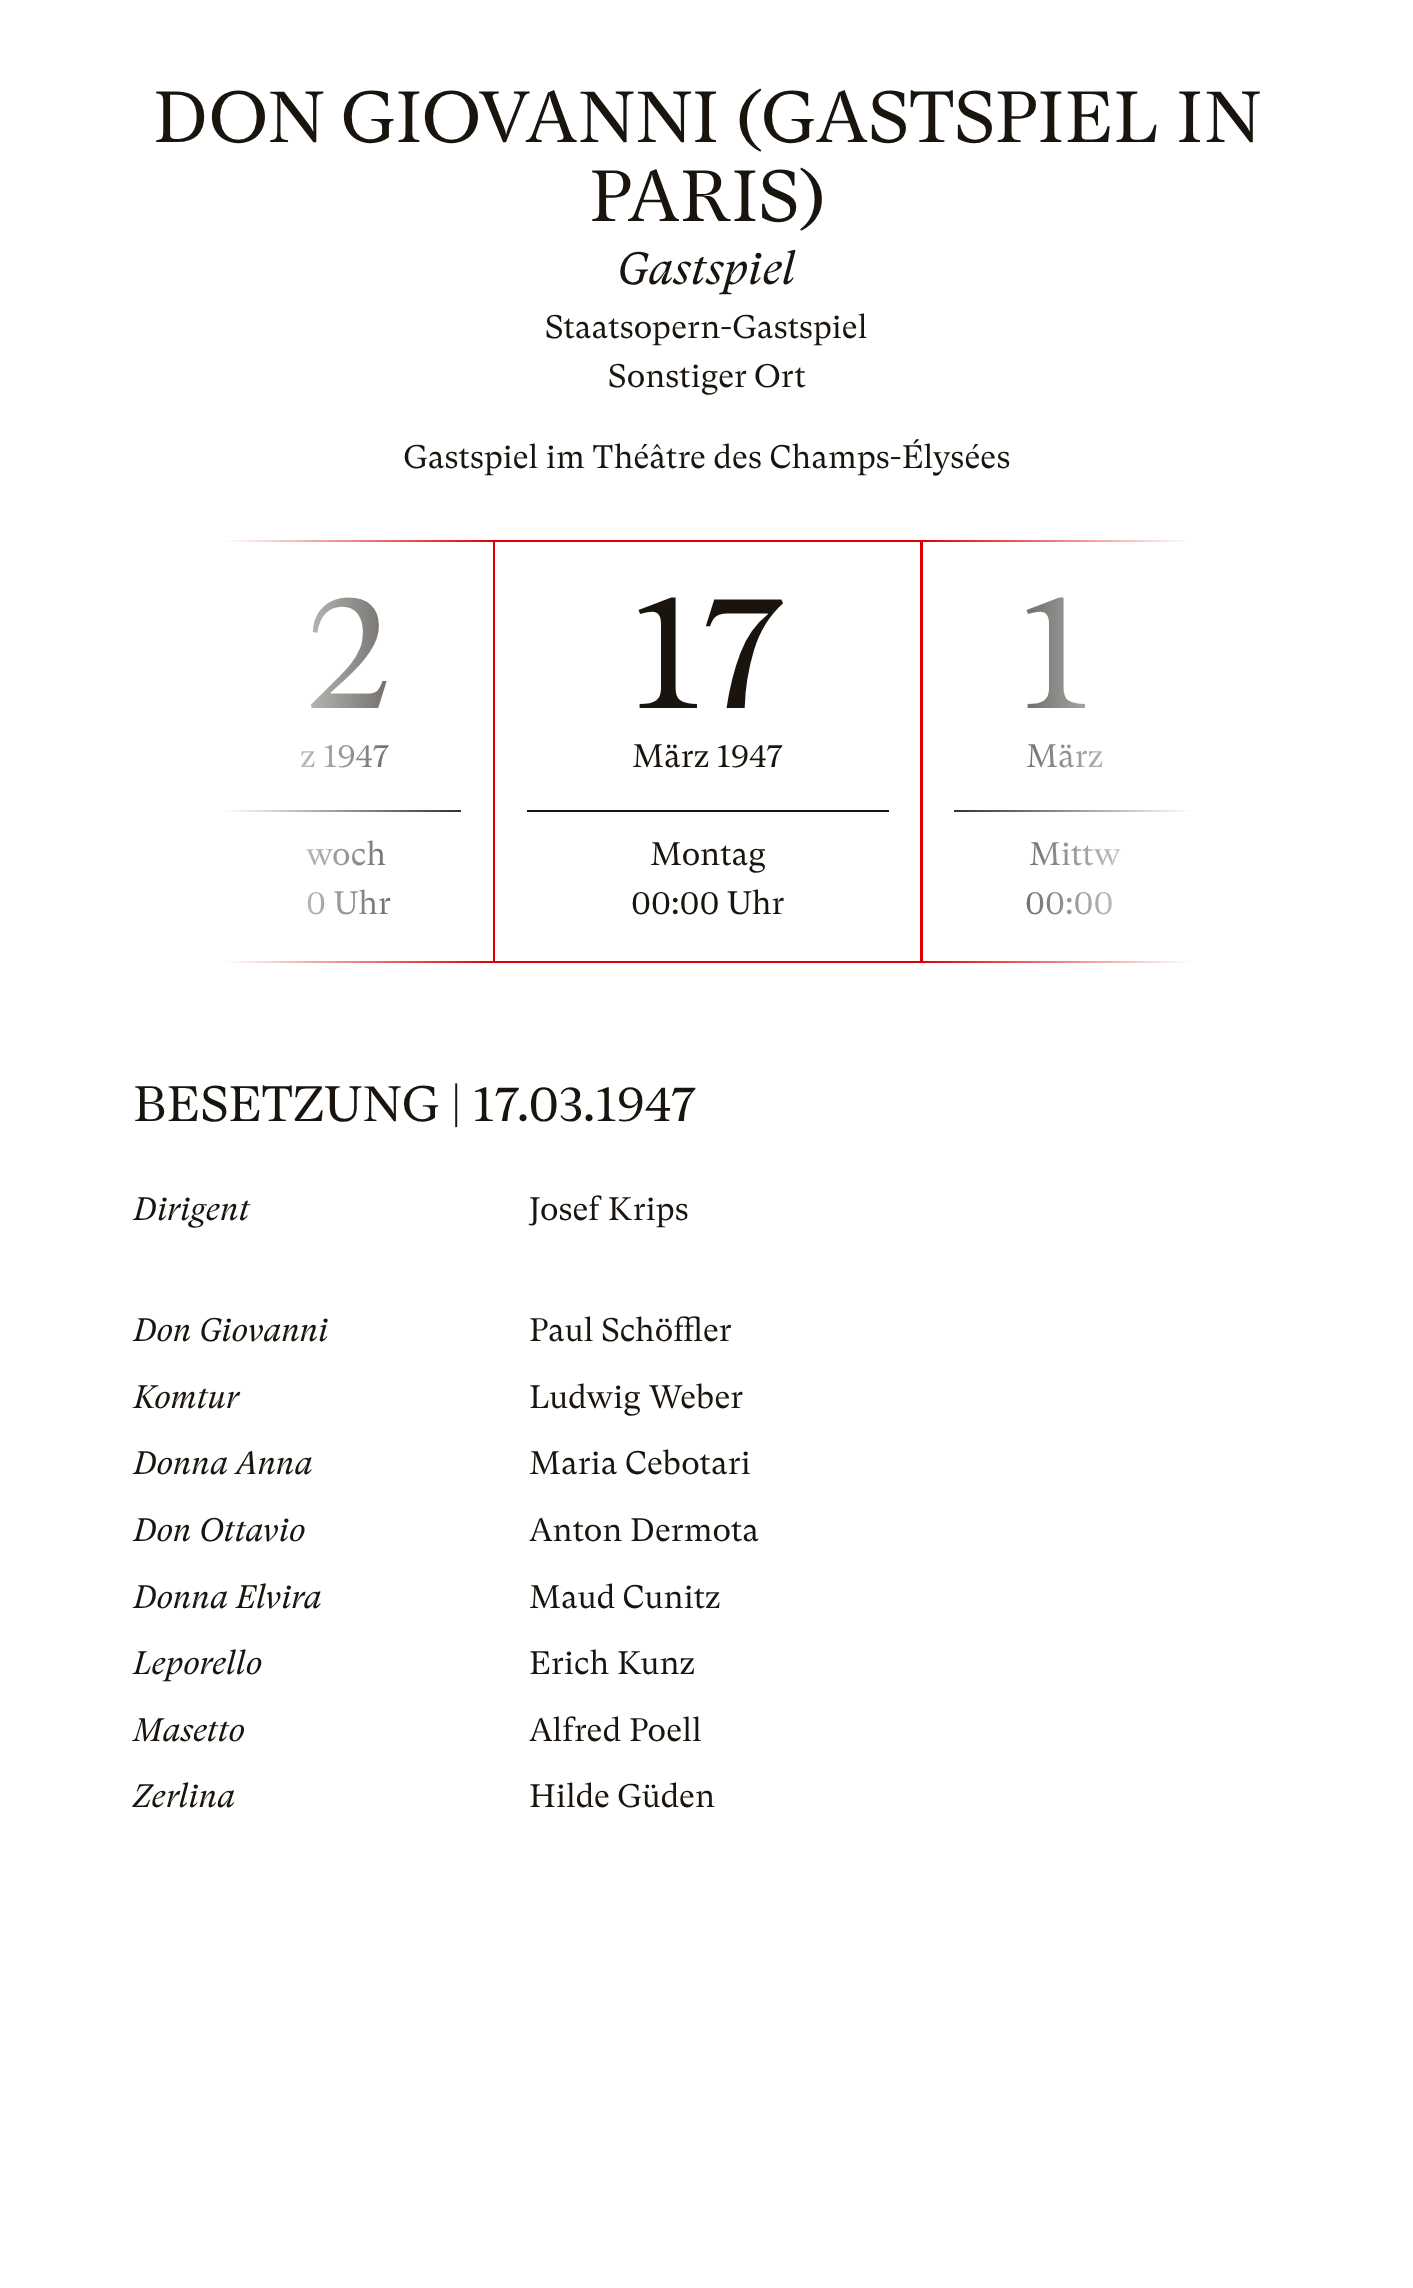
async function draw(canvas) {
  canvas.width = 1413;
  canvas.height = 2288;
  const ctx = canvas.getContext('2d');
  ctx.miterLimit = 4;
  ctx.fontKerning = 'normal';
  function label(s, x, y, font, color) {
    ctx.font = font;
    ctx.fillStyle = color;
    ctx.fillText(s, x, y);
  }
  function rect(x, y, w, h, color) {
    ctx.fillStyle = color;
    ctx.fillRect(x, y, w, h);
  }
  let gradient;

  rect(0, 0, 1413, 2288, '#fff');
  label('DON GIOVANNI (GASTSPIEL IN', 153, 142, '72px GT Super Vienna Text', '#19140e');
  label('PARIS)', 589, 221, '72px GT Super Vienna Text', '#19140e');
  label('Gastspiel', 617, 284, 'italic 45px GT Super Vienna Text', '#19140e');
  label('Staatsopern-Gastspiel', 545, 338, '32.4px GT Super Vienna Text', '#19140e');
  label('Sonstiger Ort', 608, 387, '32.4px GT Super Vienna Text', '#19140e');
  label('Gastspiel im Théâtre des Champs-Élysées', 403, 468, '32.4px GT Super Vienna Text', '#19140e');
  ctx.strokeStyle = '#de0000';
  ctx.lineWidth = 2;
  ctx.strokeRect(134, 541, 360, 421);
  label('2', 306, 708, '162px GT Super Vienna Text', '#19140e');
  rect(225, 810, 236, 2, '#19140e');
  label('z 1947', 300, 767, '32.4px GT Super Vienna Text', '#19140e');
  label('woch', 306, 865, '32.4px GT Super Vienna Text', '#19140e');
  label('0 Uhr', 306, 914, '32.4px GT Super Vienna Text', '#19140e');
  gradient = ctx.createLinearGradient(133, 752, 495, 752);
  gradient.addColorStop(0.25, '#fff');
  gradient.addColorStop(1, '#ffffff00');
  ctx.fillStyle = gradient;
  ctx.fillRect(133, 540, 356, 423);
  ctx.strokeRect(494, 541, 428, 421);
  label('17', 632, 708, '162px GT Super Vienna Text', '#19140e');
  rect(527, 810, 362, 2, '#19140e');
  label('März 1947', 632, 767, '32.4px GT Super Vienna Text', '#19140e');
  label('Montag', 650, 865, '32.4px GT Super Vienna Text', '#19140e');
  label('00:00 Uhr', 631, 914, '32.4px GT Super Vienna Text', '#19140e');
  ctx.strokeRect(921, 541, 361, 421);
  label('1', 1020, 708, '162px GT Super Vienna Text', '#19140e');
  rect(954, 810, 237, 2, '#19140e');
  label('März', 1026, 767, '32.4px GT Super Vienna Text', '#19140e');
  label('Mittw', 1029, 865, '32.4px GT Super Vienna Text', '#19140e');
  label('00:00', 1025, 914, '32.4px GT Super Vienna Text', '#19140e');
  gradient = ctx.createLinearGradient(1283, 752, 920, 752);
  gradient.addColorStop(0.25, '#fff');
  gradient.addColorStop(1, '#ffffff00');
  ctx.fillStyle = gradient;
  ctx.fillRect(926, 540, 357, 423);
  label('BESETZUNG | 17.03.1947', 133, 1121, '49.5px GT Super Vienna Text', '#19140e');
  label('Dirigent', 133, 1220, 'italic 32.4px GT Super Vienna Text', '#19140e');
  label('Josef Krips', 529, 1220, '32.4px GT Super Vienna Text', '#19140e');
  label('Don Giovanni', 133, 1341, 'italic 32.4px GT Super Vienna Text', '#19140e');
  label('Paul Schöffler', 529, 1341, '32.4px GT Super Vienna Text', '#19140e');
  label('Komtur', 133, 1408, 'italic 32.4px GT Super Vienna Text', '#19140e');
  label('Ludwig Weber', 529, 1408, '32.4px GT Super Vienna Text', '#19140e');
  label('Donna Anna', 133, 1474, 'italic 32.4px GT Super Vienna Text', '#19140e');
  label('Maria Cebotari', 529, 1474, '32.4px GT Super Vienna Text', '#19140e');
  label('Don Ottavio', 133, 1541, 'italic 32.4px GT Super Vienna Text', '#19140e');
  label('Anton Dermota', 529, 1541, '32.4px GT Super Vienna Text', '#19140e');
  label('Donna Elvira', 133, 1608, 'italic 32.4px GT Super Vienna Text', '#19140e');
  label('Maud Cunitz', 529, 1608, '32.4px GT Super Vienna Text', '#19140e');
  label('Leporello', 133, 1674, 'italic 32.4px GT Super Vienna Text', '#19140e');
  label('Erich Kunz', 529, 1674, '32.4px GT Super Vienna Text', '#19140e');
  label('Masetto', 133, 1741, 'italic 32.4px GT Super Vienna Text', '#19140e');
  label('Alfred Poell', 529, 1741, '32.4px GT Super Vienna Text', '#19140e');
  label('Zerlina', 133, 1807, 'italic 32.4px GT Super Vienna Text', '#19140e');
  label('Hilde Güden', 529, 1807, '32.4px GT Super Vienna Text', '#19140e');
}

draw(document.querySelector('canvas'));
